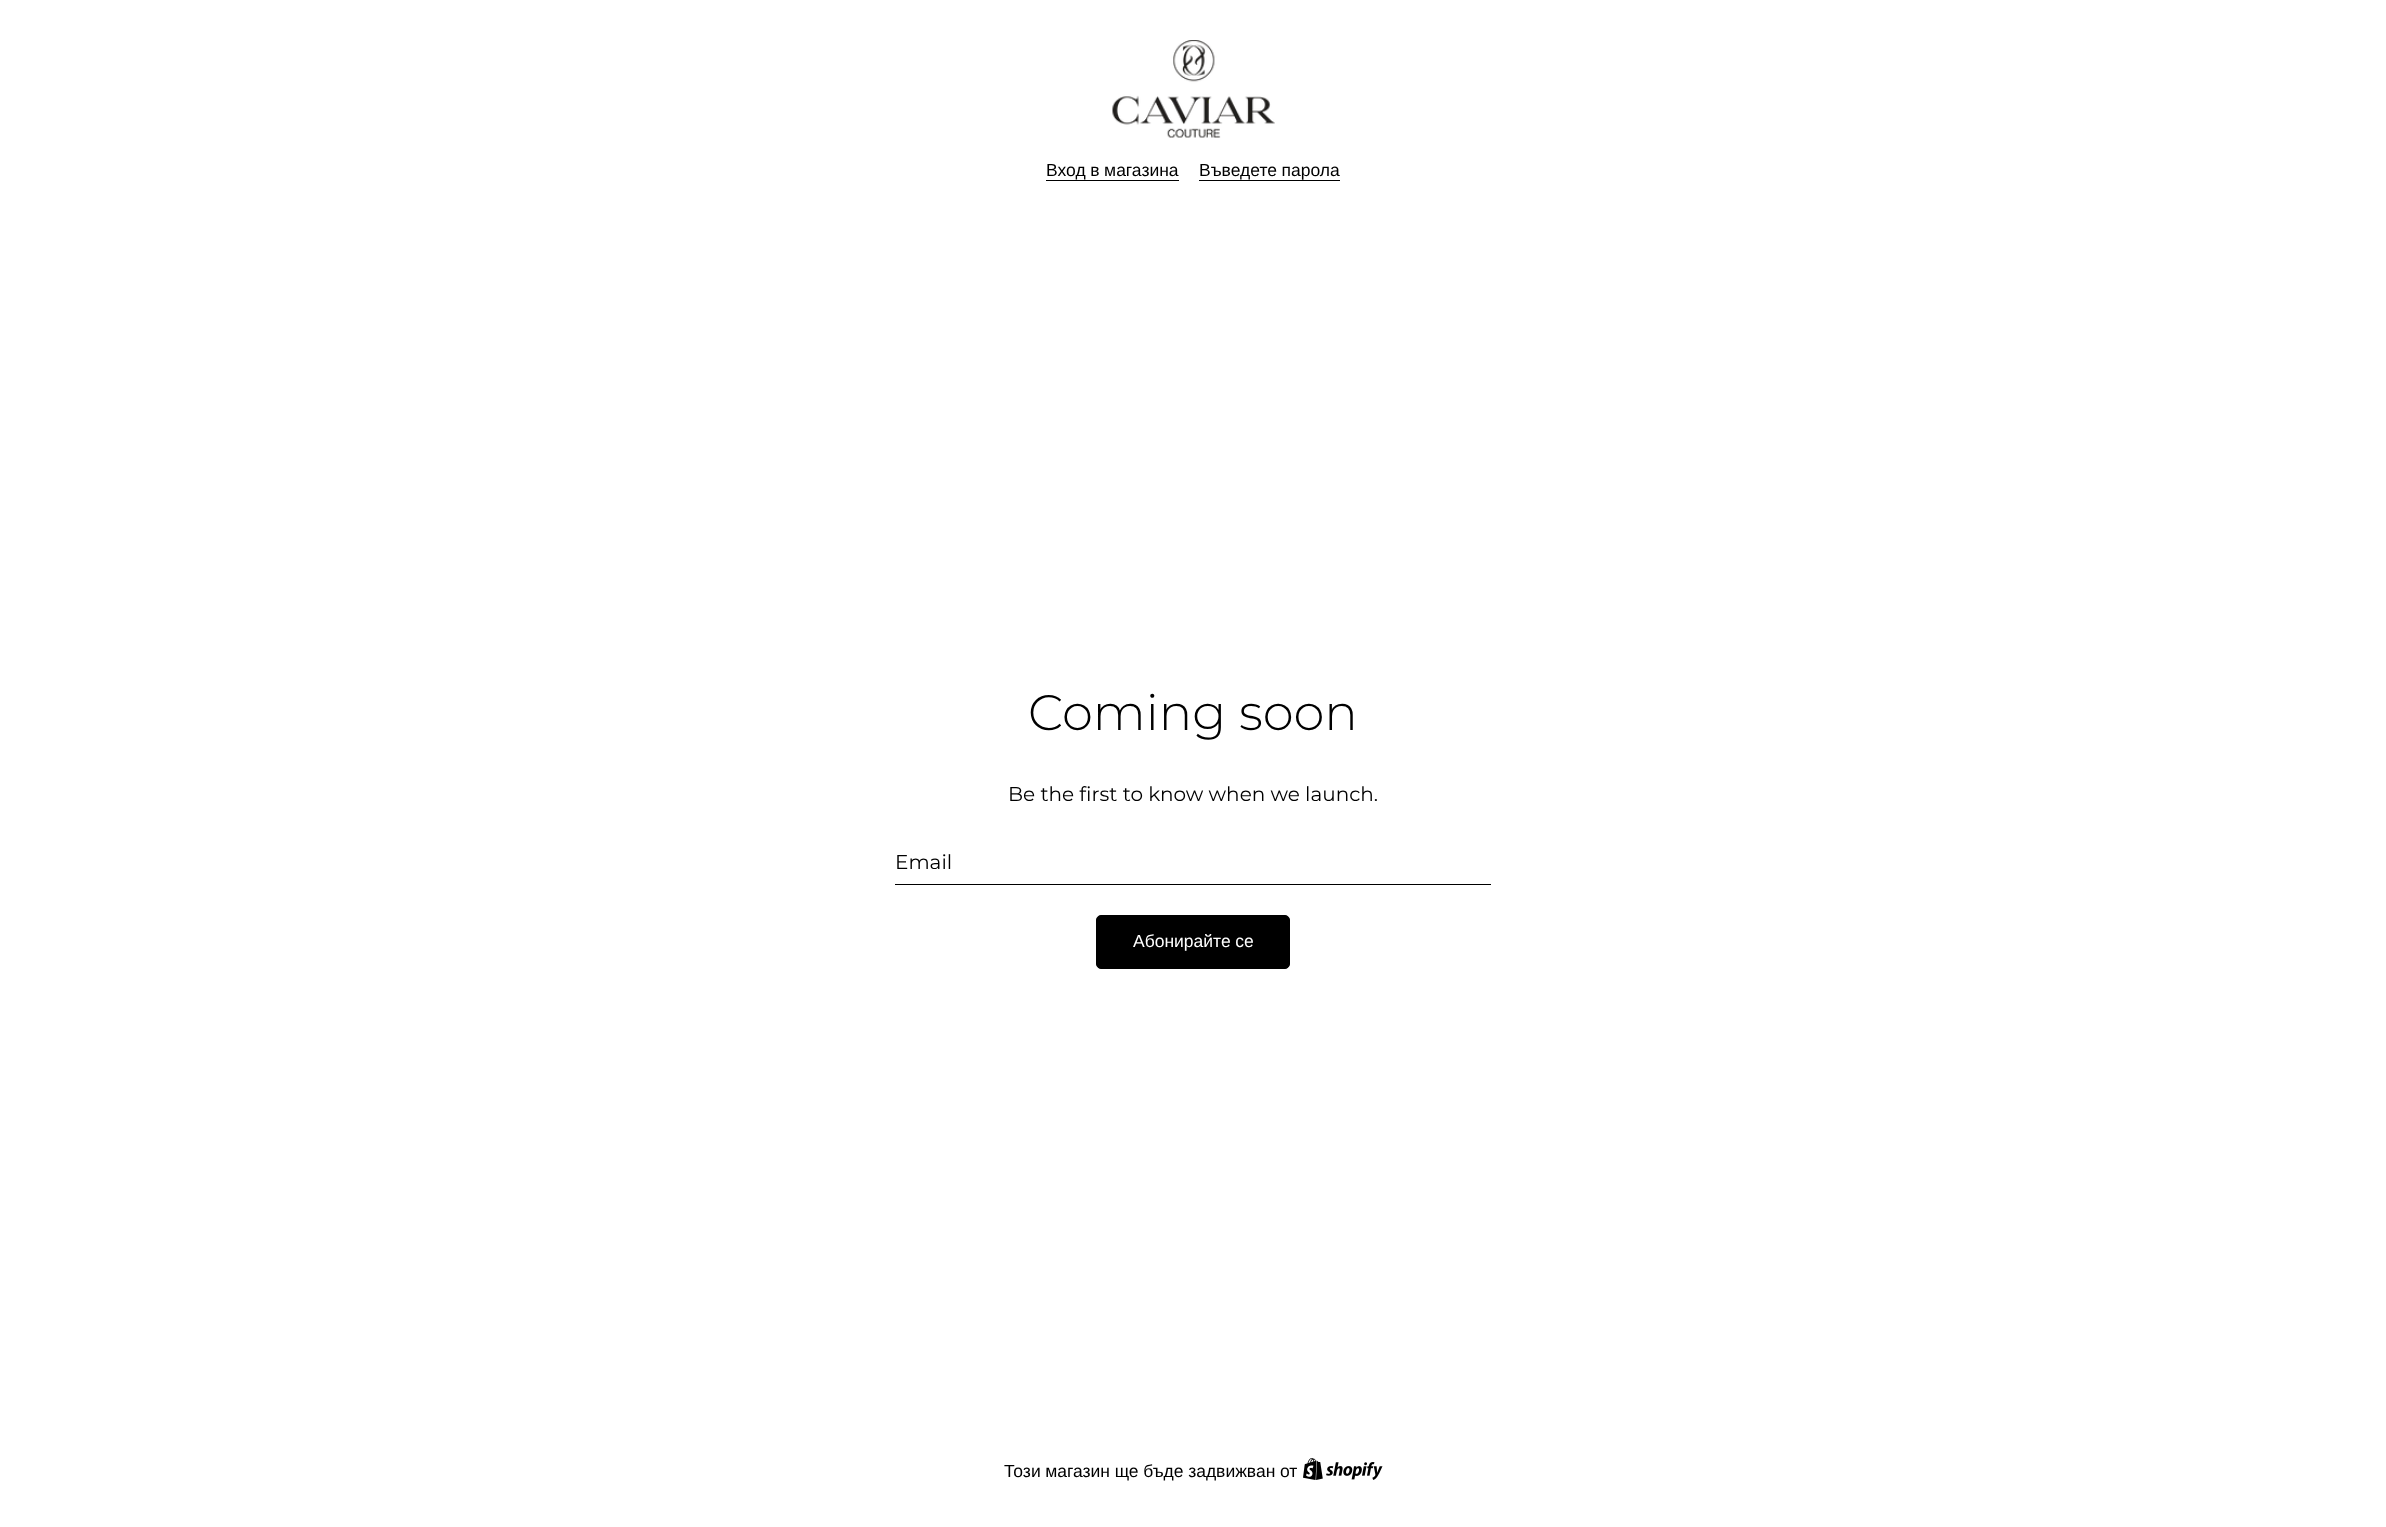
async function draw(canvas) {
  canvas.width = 2386;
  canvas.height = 1527;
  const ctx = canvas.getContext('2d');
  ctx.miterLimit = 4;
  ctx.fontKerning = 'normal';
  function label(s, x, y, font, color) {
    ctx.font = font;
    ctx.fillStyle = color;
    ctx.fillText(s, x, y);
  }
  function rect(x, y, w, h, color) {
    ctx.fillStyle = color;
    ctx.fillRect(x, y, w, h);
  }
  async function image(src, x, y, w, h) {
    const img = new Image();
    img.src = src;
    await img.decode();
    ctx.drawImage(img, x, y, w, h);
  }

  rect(0, 0, 2386, 1527, '#fff');
  await image('assets/img1.png', 1112, 40, 163, 98);
  ctx.wordSpacing = '-0.25px';
  label('Вход в магазина', 1046, 176, '17.5px Liberation Sans', '#000');
  rect(1046, 180, 133, 1, '#000');
  label('Въведете парола', 1199, 176, '17.5px Liberation Sans', '#000');
  rect(1199, 180, 141, 1, '#000');
  ctx.wordSpacing = '0px';
  label('Coming soon', 1028, 730, '300 49.75px Montserrat', '#000');
  label('Be the first to know when we launch.', 1008, 801, '20px Montserrat', '#000');
  label('Email', 895, 869, '20px Montserrat', '#000');
  rect(895, 884, 596, 1, '#000');
  ctx.beginPath();
  ctx.roundRect(1096.5, 915.5, 193, 53, 4.5);
  ctx.fill();
  ctx.strokeStyle = '#000';
  ctx.stroke();
  ctx.wordSpacing = '-0.25px';
  label('Абонирайте се', 1133, 947, '17.5px Liberation Sans', '#fff');
  label('Този магазин ще бъде задвижван от', 1004, 1477, '17.5px Liberation Sans', '#000');
  await image('assets/img2.png', 1303, 1458, 80, 22);
}

draw(document.querySelector('canvas'));
